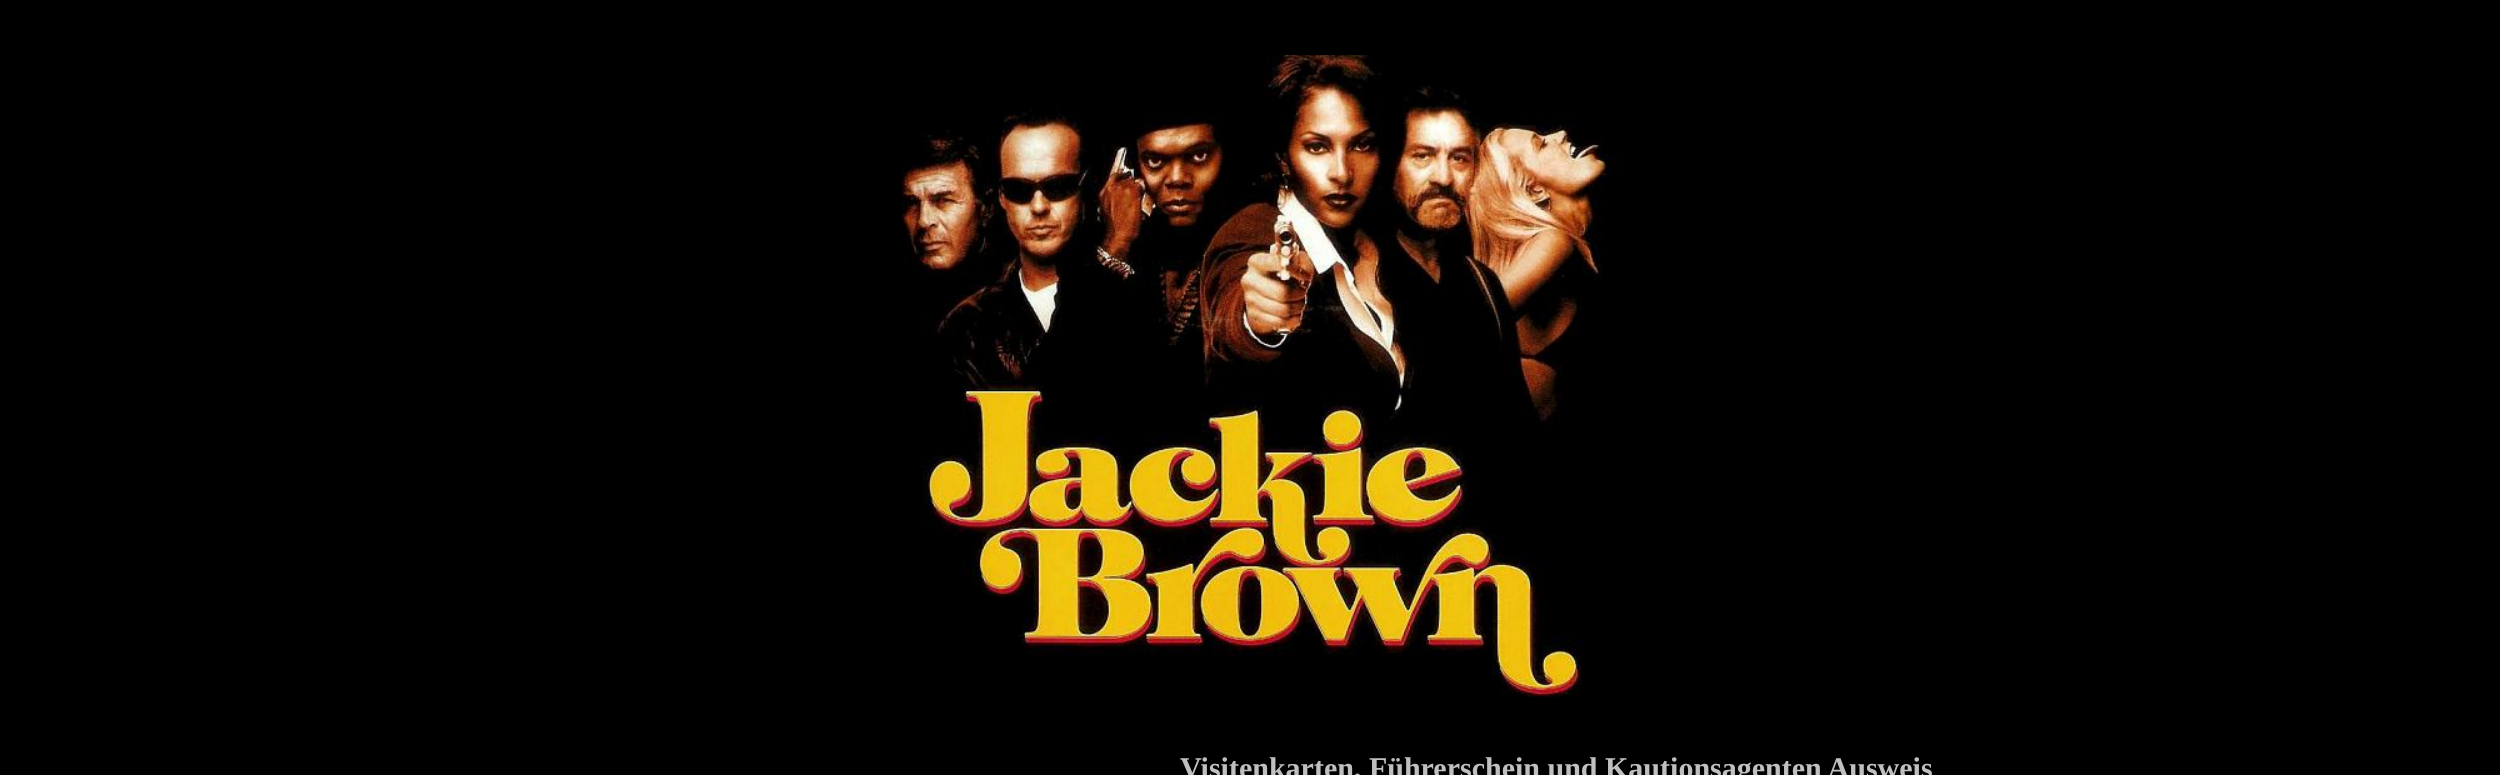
async function draw(canvas) {
  canvas.width = 2500;
  canvas.height = 775;
  const ctx = canvas.getContext('2d');
  ctx.miterLimit = 4;
  ctx.fontKerning = 'normal';
  function label(s, x, y, font, color) {
    ctx.font = font;
    ctx.fillStyle = color;
    ctx.fillText(s, x, y);
  }
  function rect(x, y, w, h, color) {
    ctx.fillStyle = color;
    ctx.fillRect(x, y, w, h);
  }
  async function image(src, x, y, w, h) {
    const img = new Image();
    img.src = src;
    await img.decode();
    ctx.drawImage(img, x, y, w, h);
  }

  rect(0, 0, 2500, 775, '#000');
  await image('assets/img1.png', 901, 55, 721, 643);
  label('Visitenkarten, Führerschein und Kautionsagenten Ausweis', 1180, 778, 'bold 30px Liberation Serif', '#c0c0c0');
}

draw(document.querySelector('canvas'));
